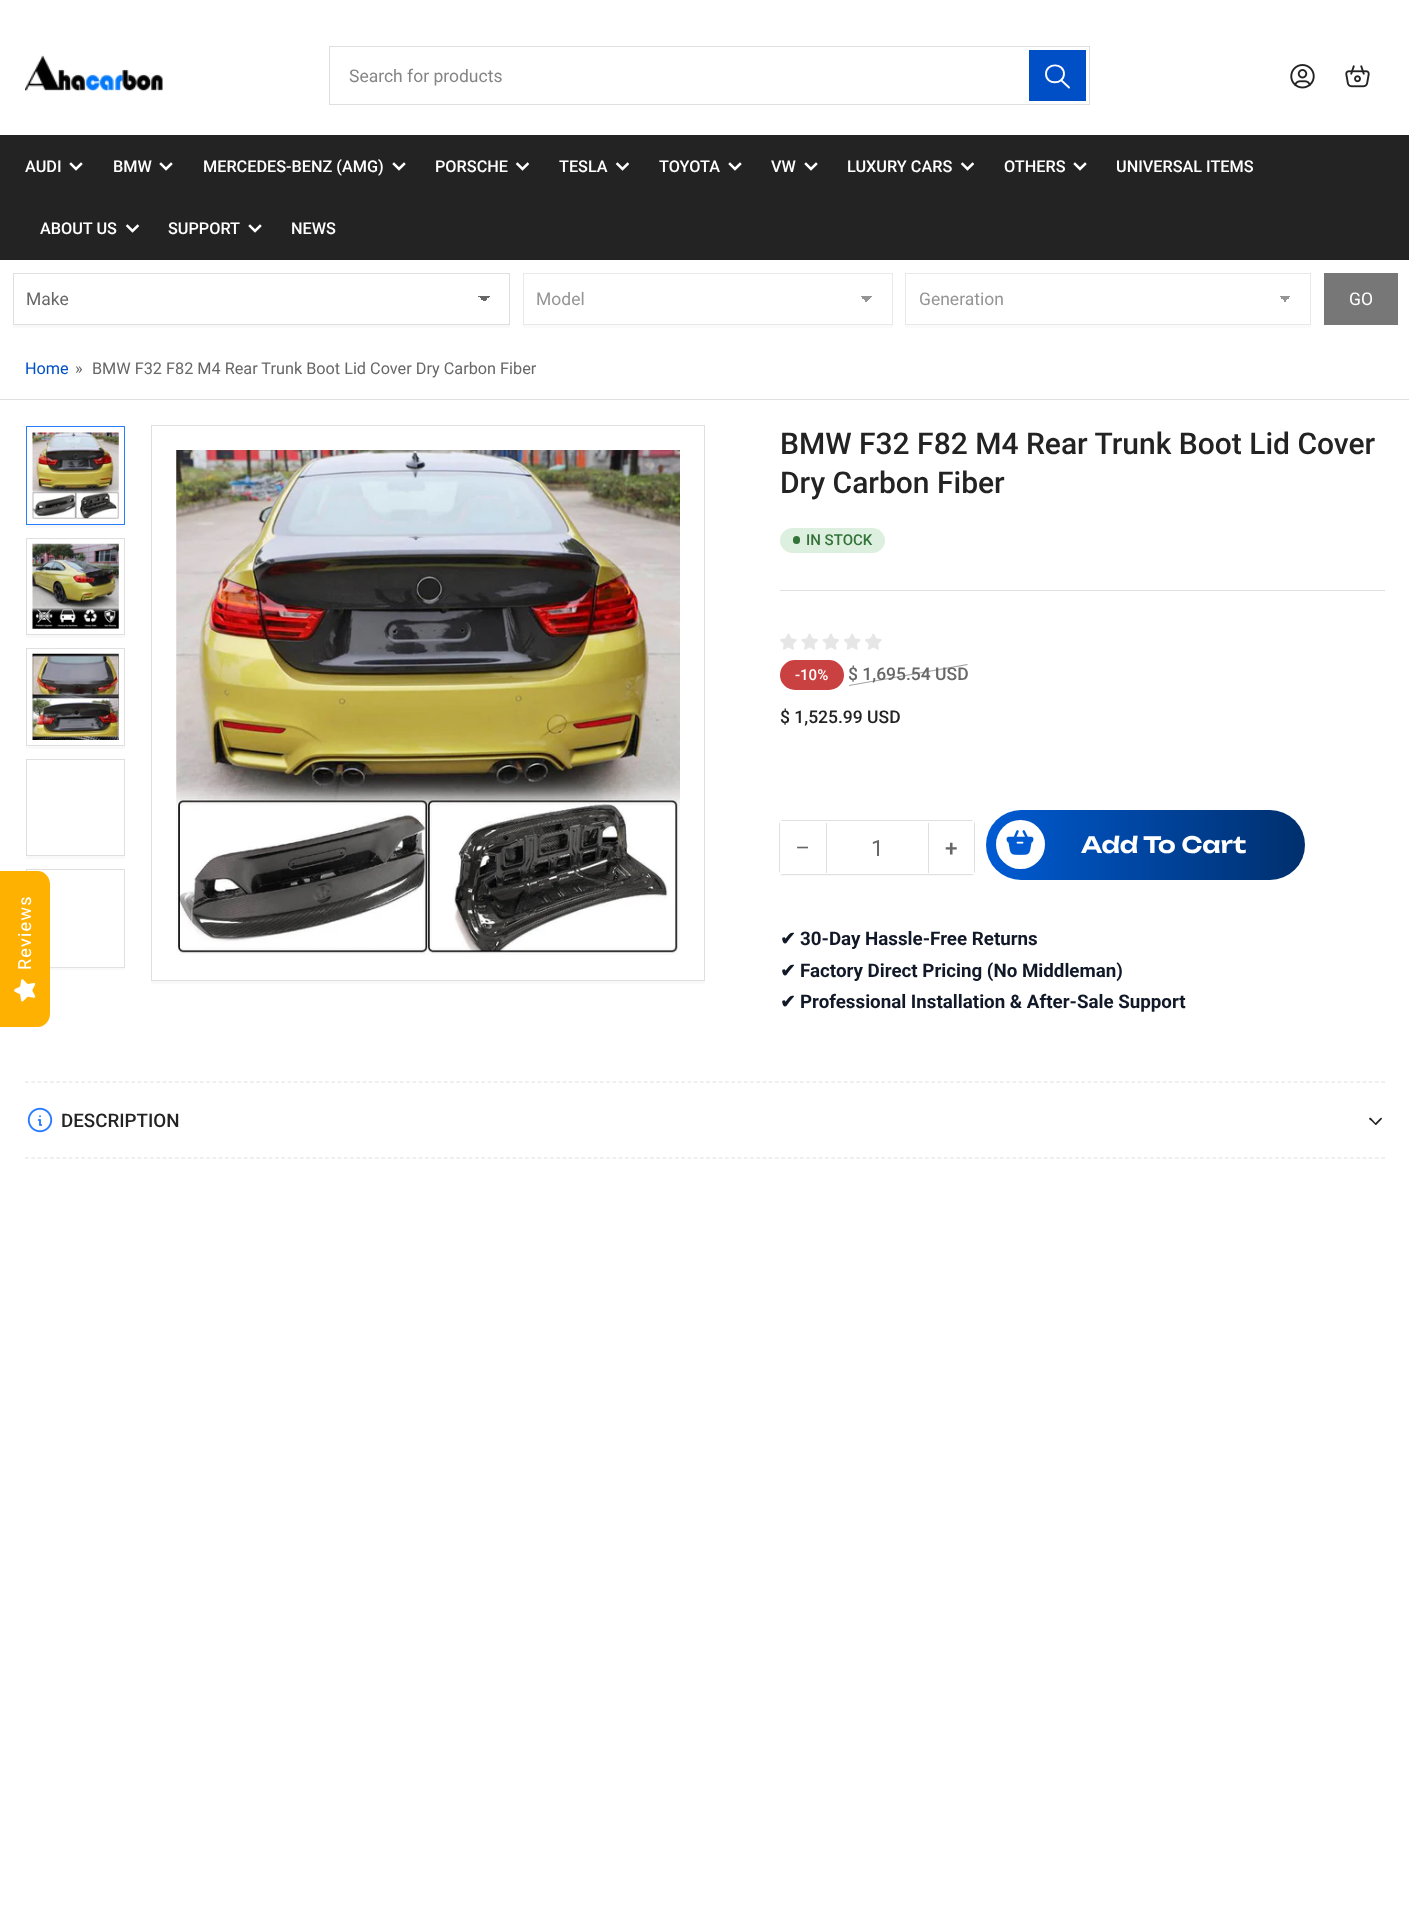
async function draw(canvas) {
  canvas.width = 1409;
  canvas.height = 1910;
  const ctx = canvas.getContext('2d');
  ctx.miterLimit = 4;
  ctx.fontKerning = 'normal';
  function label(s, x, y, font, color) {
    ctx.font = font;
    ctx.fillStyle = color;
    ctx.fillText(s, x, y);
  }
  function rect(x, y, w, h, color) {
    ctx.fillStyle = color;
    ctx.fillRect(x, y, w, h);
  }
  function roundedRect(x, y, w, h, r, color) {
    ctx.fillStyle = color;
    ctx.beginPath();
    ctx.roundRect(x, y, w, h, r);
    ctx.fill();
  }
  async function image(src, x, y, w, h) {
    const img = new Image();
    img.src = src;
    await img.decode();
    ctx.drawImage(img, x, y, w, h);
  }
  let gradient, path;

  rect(0, 0, 1409, 1910, '#fff');
  await image('assets/img1.png', 25, 55, 138, 37);
  ctx.strokeStyle = '#dfdfdf';
  ctx.strokeRect(329.5, 46.5, 760, 58);
  label('Search for products', 349, 82, '17.5px Roboto', '#858585');
  ctx.strokeStyle = '#004fc7';
  ctx.strokeRect(1029.5, 50.5, 56, 50);
  rect(1030, 51, 55, 49, '#004fc7');
  path = new Path2D('M1046 74C1046 85 1063.5 85 1064 74C1064 62.5 1046 62.5 1046 74M1069 87.5L1061 80');
  ctx.strokeStyle = '#fff';
  ctx.lineWidth = 1.9;
  ctx.lineCap = 'round';
  ctx.lineJoin = 'round';
  ctx.stroke(path);
  await image('assets/img2.png', 1290, 64, 25, 25);
  await image('assets/img3.png', 1345, 65, 25, 23);
  rect(0, 135, 1409, 125, '#232323');
  label('AUDI', 25, 172, '500 16.25px Roboto', '#fff');
  path = new Path2D('M81 164L76 169L71 164');
  ctx.lineWidth = 2.5;
  ctx.lineCap = 'square';
  ctx.lineJoin = 'miter';
  ctx.stroke(path);
  label('BMW', 113, 172, '500 16.25px Roboto', '#fff');
  path = new Path2D('M171 164L166 169L161 164');
  ctx.stroke(path);
  label('MERCEDES-BENZ (AMG)', 203, 172, '500 16.25px Roboto', '#fff');
  path = new Path2D('M404 164L399 169L394 164');
  ctx.stroke(path);
  label('PORSCHE', 435, 172, '500 16.25px Roboto', '#fff');
  path = new Path2D('M527.5 164L522.5 169L517.5 164');
  ctx.stroke(path);
  label('TESLA', 559, 172, '500 16.25px Roboto', '#fff');
  path = new Path2D('M627.5 164L622.5 169L617.5 164');
  ctx.stroke(path);
  label('TOYOTA', 659, 172, '500 16.25px Roboto', '#fff');
  path = new Path2D('M740 164L735 169L730 164');
  ctx.stroke(path);
  label('VW', 771, 172, '500 16.25px Roboto', '#fff');
  path = new Path2D('M816 164L811 169L806 164');
  ctx.stroke(path);
  label('LUXURY CARS', 847, 172, '500 16.25px Roboto', '#fff');
  path = new Path2D('M972.5 164L967.5 169L962.5 164');
  ctx.stroke(path);
  label('OTHERS', 1004, 172, '500 16.25px Roboto', '#fff');
  path = new Path2D('M1085 164L1080 169L1075 164');
  ctx.stroke(path);
  label('UNIVERSAL ITEMS', 1116, 172, '500 16.25px Roboto', '#fff');
  label('ABOUT US', 40, 234, '500 16.25px Roboto', '#fff');
  path = new Path2D('M137.5 226L132.5 231L127.5 226');
  ctx.stroke(path);
  label('SUPPORT', 168, 234, '500 16.25px Roboto', '#fff');
  path = new Path2D('M260 226L255 231L250 226');
  ctx.stroke(path);
  label('NEWS', 291, 234, '500 16.25px Roboto', '#fff');
  rect(13, 325, 497, 3, '#f9f9f9');
  gradient = ctx.createLinearGradient(484, 296, 490, 302);
  gradient.addColorStop(0.5, '#676767');
  gradient.addColorStop(0.5, '#fff');
  ctx.fillStyle = gradient;
  ctx.fillRect(484, 296, 6, 7);
  gradient = ctx.createLinearGradient(478, 302, 484, 296);
  gradient.addColorStop(0.5, '#fff');
  gradient.addColorStop(0.5, '#676767');
  ctx.fillStyle = gradient;
  ctx.fillRect(478, 296, 6, 7);
  ctx.strokeStyle = '#dfdfdf';
  ctx.lineWidth = 1;
  ctx.strokeRect(13.5, 273.5, 496, 51);
  label('Make', 26, 305, '17.5px Roboto', '#676767');
  ctx.fillStyle = '#fbfbfb';
  path = new Path2D('M523 325V328H893V275H892V325Z');
  ctx.fill(path);
  gradient = ctx.createLinearGradient(866, 296, 873, 302);
  gradient.addColorStop(0.5, '#959595');
  gradient.addColorStop(0.5, '#fff');
  ctx.fillStyle = gradient;
  ctx.fillRect(866, 296, 7, 6);
  gradient = ctx.createLinearGradient(860, 302, 866, 296);
  gradient.addColorStop(0.5, '#fff');
  gradient.addColorStop(0.5, '#959595');
  ctx.fillStyle = gradient;
  ctx.fillRect(860, 296, 6, 7);
  ctx.strokeStyle = '#e9e9e9';
  ctx.strokeRect(523.5, 273.5, 369, 51);
  label('Model', 536, 305, '17.5px Roboto', '#959595');
  rect(905, 325, 406, 3, '#fbfbfb');
  gradient = ctx.createLinearGradient(1285, 296, 1291, 302);
  gradient.addColorStop(0.5, '#959595');
  gradient.addColorStop(0.5, '#fff');
  ctx.fillStyle = gradient;
  ctx.fillRect(1285, 296, 6, 7);
  gradient = ctx.createLinearGradient(1279, 302, 1285, 296);
  gradient.addColorStop(0.5, '#fff');
  gradient.addColorStop(0.5, '#959595');
  ctx.fillStyle = gradient;
  ctx.fillRect(1279, 296, 6, 7);
  ctx.strokeRect(905.5, 273.5, 405, 51);
  label('Generation', 919, 305, '17.5px Roboto', '#959595');
  rect(1324, 273, 74, 52, '#777');
  label('GO', 1349, 305, '17.5px Roboto', '#fff');
  ctx.fillStyle = '#f9f9f9';
  path = new Path2D('M26 871V970H125V968H26Z');
  ctx.fill(path);
  ctx.strokeStyle = '#dfdfdf';
  ctx.strokeRect(26.5, 869.5, 98, 98);
  ctx.fillStyle = '#ffb102';
  path = new Path2D('M0 1027V871H38C44 871 50 877 50 884V1014C50 1021 44 1027 38 1027Z');
  ctx.fill(path);
  ctx.letterSpacing = '1.25px';
  ctx.font = '18px Roboto';
  ctx.fillStyle = '#fff';
  ctx.save();
  ctx.translate(31, 970);
  ctx.rotate(-90 * Math.PI / 180);
  ctx.fillText('Reviews', 0, 0);
  ctx.restore();
  await image('assets/img4.png', 14, 979, 22, 23);
  rect(0, 399, 1409, 1, '#dfdfdf');
  ctx.letterSpacing = '0px';
  label('Home', 25, 374, '16.25px Roboto', '#004fc7');
  label('»', 75, 374, '16.25px Roboto', '#676767');
  label('BMW F32 F82 M4 Rear Trunk Boot Lid Cover Dry Carbon Fiber', 92, 374, '16.25px Roboto', '#676767');
  ctx.fillStyle = '#f9f9f9';
  path = new Path2D('M26 429V528H125V525H26Z');
  ctx.fill(path);
  ctx.strokeStyle = '#287dff';
  ctx.strokeRect(26.5, 426.5, 98, 98);
  await image('assets/img5.png', 32, 432, 87, 87);
  path = new Path2D('M26 540V638H125V635H26Z');
  ctx.fill(path);
  ctx.strokeStyle = '#dfdfdf';
  ctx.strokeRect(26.5, 538.5, 98, 96);
  await image('assets/img6.png', 32, 543, 87, 86);
  path = new Path2D('M26 650V749H125V746H26Z');
  ctx.fill(path);
  ctx.strokeRect(26.5, 648.5, 98, 97);
  await image('assets/img7.png', 32, 653, 87, 87);
  path = new Path2D('M26 761V859H125V856H26Z');
  ctx.fill(path);
  ctx.strokeRect(26.5, 759.5, 98, 96);
  gradient = ctx.createLinearGradient(76, 1006, 76, 963);
  gradient.addColorStop(0, '#fff');
  gradient.addColorStop(1, '#ffffff00');
  ctx.fillStyle = gradient;
  ctx.fillRect(50, 966, 75, 2);
  ctx.fillStyle = '#f9f9f9';
  path = new Path2D('M151 428V984H705V981H151Z');
  ctx.fill(path);
  ctx.strokeRect(151.5, 425.5, 553, 555);
  await image('assets/img8.png', 176, 450, 504, 505);
  rect(780, 590, 605, 1, '#dfdfdf');
  label('BMW F32 F82 M4 Rear Trunk Boot Lid Cover', 780, 454, '500 30px Roboto', '#232323');
  label('Dry Carbon Fiber', 780, 493, '500 30px Roboto', '#232323');
  roundedRect(780, 528, 105, 25, 12.5, '#ddf0df');
  roundedRect(793, 536, 7, 8, 3.5, '#337239');
  label('IN STOCK', 806, 545, '500 15px Roboto', '#337239');
  await image('assets/img9.png', 780, 633, 17, 17);
  await image('assets/img10.png', 801, 633, 17, 17);
  await image('assets/img11.png', 822, 633, 17, 17);
  await image('assets/img12.png', 844, 633, 17, 17);
  await image('assets/img9.png', 865, 633, 17, 17);
  ctx.fillStyle = '#ca4141';
  ctx.beginPath();
  ctx.roundRect(781.5, 661.5, 61, 27, 13.5);
  ctx.fill();
  ctx.strokeStyle = '#ca4141';
  ctx.lineWidth = 3;
  ctx.stroke();
  label('-10%', 795, 680, '500 15px Roboto', '#fff');
  label('$ 1,695.54 USD', 848, 680, '500 17.5px Roboto', '#676767');
  ctx.fillStyle = '#67676799';
  path = new Path2D('M849 685L967 664L968 665L849 686Z');
  ctx.fill(path);
  label('$ 1,525.99 USD', 780, 723, '500 17.5px Roboto', '#232323');
  ctx.fillStyle = '#f9f9f9';
  path = new Path2D('M780 871V874C780 875 781 876 782 876H972C973 876 974 875 974 874V825V871C974 873 973 874 971 874H782C781 874 780 873 780 871Z');
  ctx.fill(path);
  ctx.beginPath();
  ctx.roundRect(779.5, 820.5, 195, 54, 3.5);
  ctx.strokeStyle = '#dfdfdf';
  ctx.lineWidth = 1;
  ctx.stroke();
  rect(780, 821, 3, 53, '#fff');
  label('−', 796, 855, '22.5px Liberation Sans', '#676767');
  rect(928, 823, 1, 50, '#dfdfdf');
  rect(826, 823, 1, 50, '#dfdfdf');
  label('1', 871, 856, '22.5px Roboto', '#676767');
  rect(971, 821, 3, 53, '#fff');
  label('+', 945, 856, '500 22.5px Roboto', '#676767');
  gradient = ctx.createLinearGradient(986, 845, 1305, 845);
  gradient.addColorStop(0, '#005bd3');
  gradient.addColorStop(1, '#002f6d');
  ctx.fillStyle = gradient;
  ctx.beginPath();
  ctx.roundRect(986, 810, 319, 70, 35);
  ctx.fill();
  ctx.fillStyle = '#fff';
  ctx.beginPath();
  ctx.arc(1020.5, 844.5, 24.5, 0, 2 * Math.PI);
  ctx.fill();
  await image('assets/img13.png', 1006, 830, 28, 25);
  label('Add To Cart', 1081, 853, '600 22.5px Unbounded', '#fff');
  label('✔', 780, 945, 'bold 18.75px DejaVu Sans', '#111827');
  label('30-Day Hassle-Free Returns', 800, 945, 'bold 18.75px Roboto', '#111827');
  label('✔', 780, 977, 'bold 18.75px DejaVu Sans', '#111827');
  label('Factory Direct Pricing (No Middleman)', 800, 977, 'bold 18.75px Roboto', '#111827');
  label('✔', 780, 1008, 'bold 18.75px DejaVu Sans', '#111827');
  label('Professional Installation & After-Sale Support', 800, 1008, 'bold 18.75px Roboto', '#111827');
  path = new Path2D('M25 1082H1385');
  ctx.lineWidth = 1.2;
  ctx.lineCap = 'butt';
  ctx.setLineDash([3.75, 2.5]);
  ctx.stroke(path);
  path = new Path2D('M25 1158H1385');
  ctx.stroke(path);
  await image('assets/img14.png', 27, 1107, 26, 26);
  label('DESCRIPTION', 61, 1127, '500 18.75px Roboto', '#232323');
  path = new Path2D('M1371 1118L1375 1122.5C1377.5 1124.5 1376 1126 1374 1123.5L1371.5 1121C1371 1120.5 1368 1119 1369.5 1118C1370 1117.5 1370.5 1117.5 1371 1118Z');
  ctx.fill(path);
  path = new Path2D('M1375 1123.5L1379.5 1119C1381.5 1116.5 1383 1118 1381 1120L1378 1123C1377.5 1123.5 1376 1126 1375 1124.5C1375 1124 1375 1123.5 1375 1123.5Z');
  ctx.fill(path);
}

draw(document.querySelector('canvas'));
